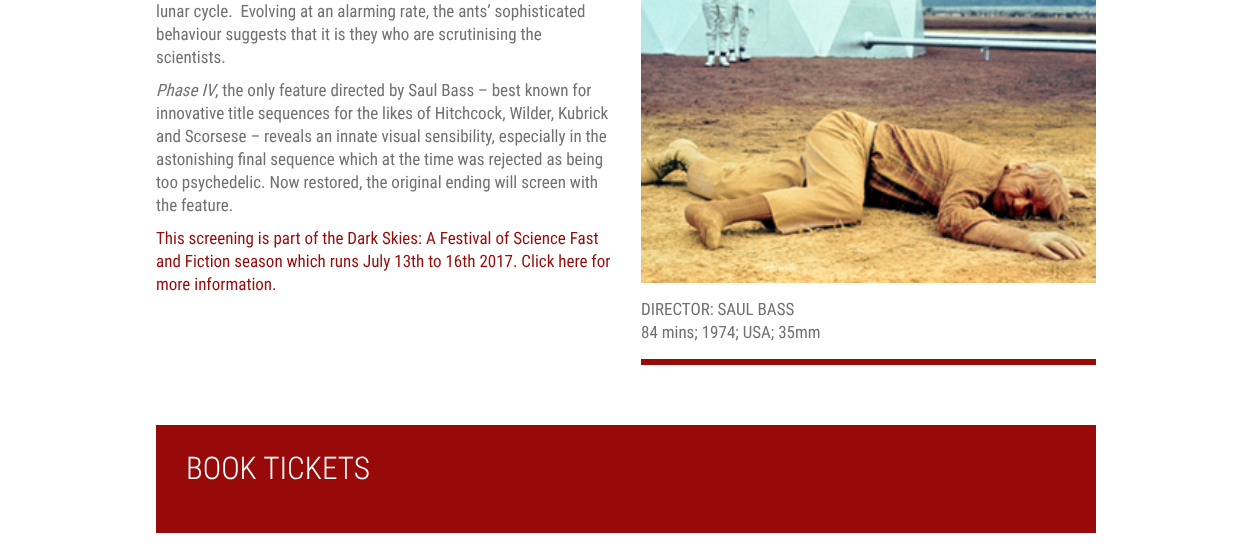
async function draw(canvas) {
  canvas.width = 1252;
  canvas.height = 548;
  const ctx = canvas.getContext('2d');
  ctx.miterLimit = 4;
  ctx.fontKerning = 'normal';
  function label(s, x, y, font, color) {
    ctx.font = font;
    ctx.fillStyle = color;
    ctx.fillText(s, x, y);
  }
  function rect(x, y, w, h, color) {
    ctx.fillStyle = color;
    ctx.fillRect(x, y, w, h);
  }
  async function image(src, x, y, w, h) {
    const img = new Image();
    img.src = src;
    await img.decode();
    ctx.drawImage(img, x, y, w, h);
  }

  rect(0, 0, 1252, 548, '#fff');
  label('lunar cycle.  Evolving at an alarming rate, the ants’ sophisticated', 156, 17, '17px Roboto Condensed', '#717171');
  label('behaviour suggests that it is they who are scrutinising the', 156, 40, '17px Roboto Condensed', '#717171');
  label('scientists.', 156, 63, '17px Roboto Condensed', '#717171');
  label('Phase IV', 156, 96, 'italic 17px Roboto Condensed', '#717171');
  label(', the only feature directed by Saul Bass – best known for', 215, 96, '17px Roboto Condensed', '#717171');
  label('innovative title sequences for the likes of Hitchcock, Wilder, Kubrick', 156, 119, '17px Roboto Condensed', '#717171');
  label('and Scorsese – reveals an innate visual sensibility, especially in the', 156, 142, '17px Roboto Condensed', '#717171');
  label('astonishing final sequence which at the time was rejected as being', 156, 165, '17px Roboto Condensed', '#717171');
  label('too psychedelic. Now restored, the original ending will screen with', 156, 188, '17px Roboto Condensed', '#717171');
  label('the feature.', 156, 211, '17px Roboto Condensed', '#717171');
  label('This screening is part of the Dark Skies: A Festival of Science Fast', 156, 244, '17px Roboto Condensed', '#980b0b');
  label('and Fiction season which runs July 13th to 16th 2017. Click here for', 156, 267, '17px Roboto Condensed', '#980b0b');
  label('more information.', 156, 290, '17px Roboto Condensed', '#980b0b');
  await image('assets/img1.png', 641, 0, 455, 283);
  label('DIRECTOR: SAUL BASS', 641, 315, '17px Roboto Condensed', '#717171');
  label('84 mins; 1974; USA; 35mm', 641, 338, '17px Roboto Condensed', '#717171');
  rect(641, 359, 455, 6, '#980b0b');
  rect(156, 425, 940, 108, '#980a0a');
  label('BOOK TICKETS', 186, 479, '300 31.25px Roboto Condensed', '#fff');
}

draw(document.querySelector('canvas'));
